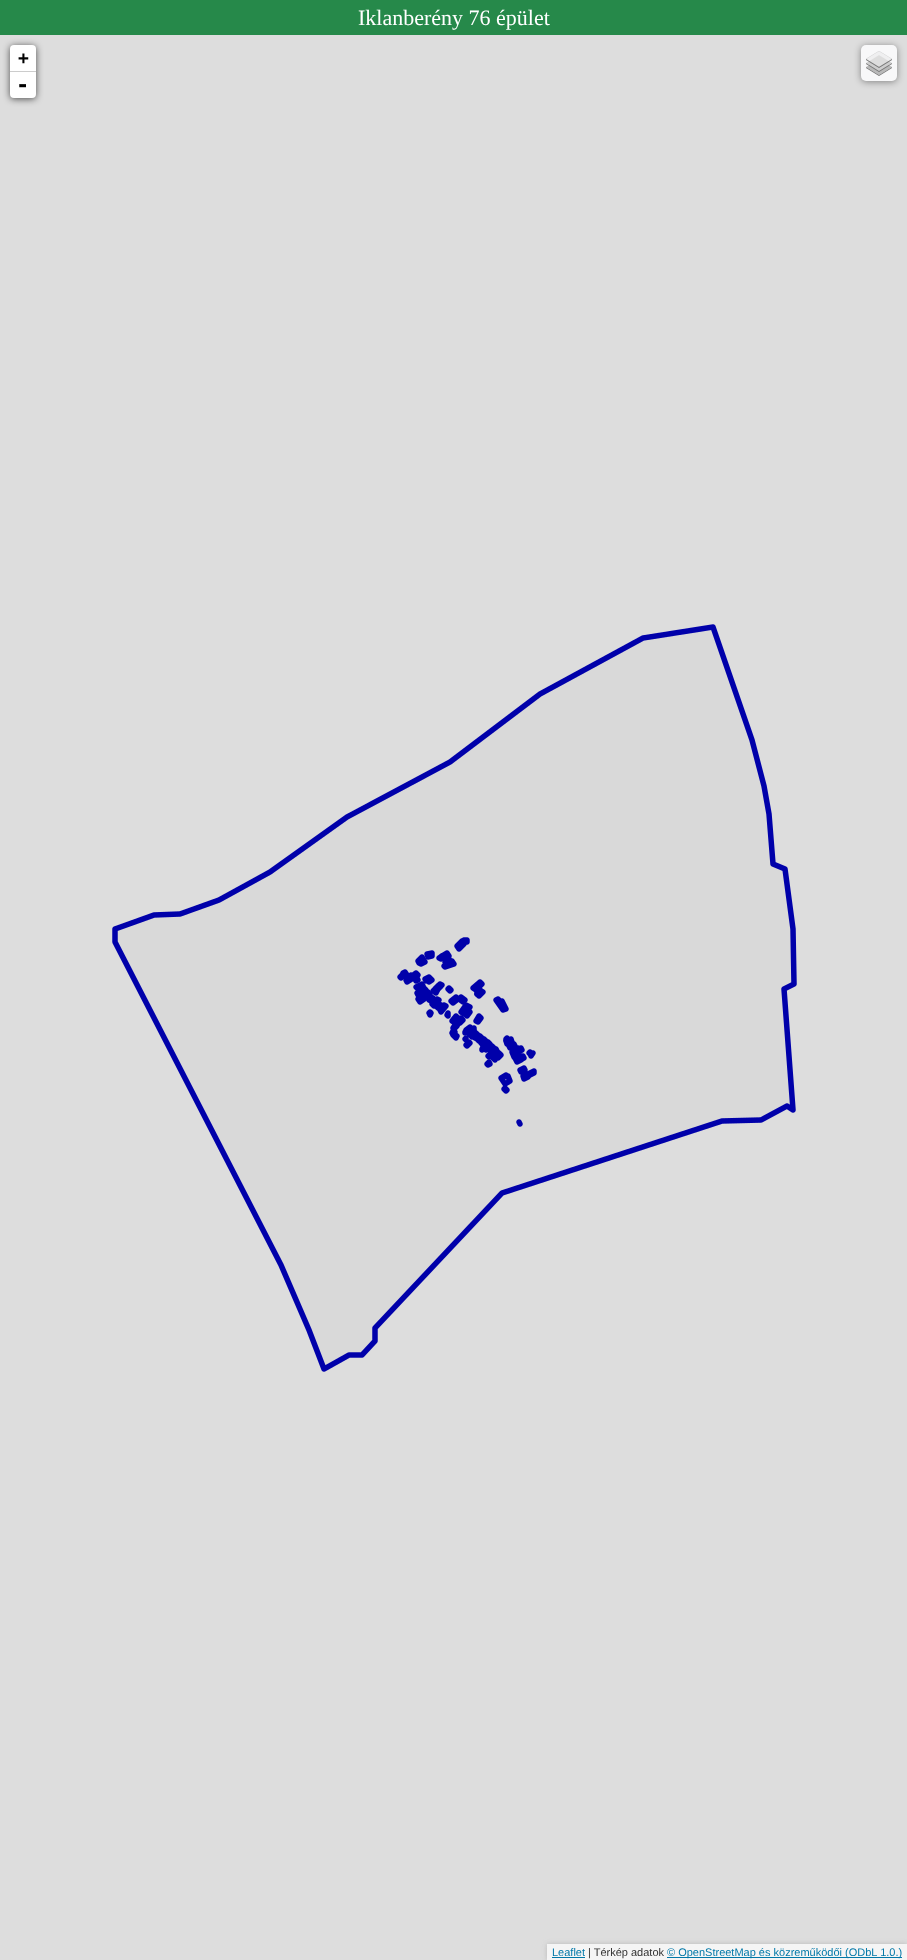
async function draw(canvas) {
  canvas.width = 907;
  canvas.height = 1960;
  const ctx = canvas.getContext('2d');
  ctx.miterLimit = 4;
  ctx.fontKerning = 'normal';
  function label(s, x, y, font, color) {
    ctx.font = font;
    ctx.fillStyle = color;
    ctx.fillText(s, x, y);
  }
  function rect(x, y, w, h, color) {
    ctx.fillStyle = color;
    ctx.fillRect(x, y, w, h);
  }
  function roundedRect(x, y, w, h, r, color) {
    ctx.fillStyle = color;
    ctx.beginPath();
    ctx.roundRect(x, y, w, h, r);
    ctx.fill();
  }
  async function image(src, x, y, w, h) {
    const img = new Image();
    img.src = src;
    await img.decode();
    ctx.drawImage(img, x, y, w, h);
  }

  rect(0, 0, 907, 1960, '#ddd');
  rect(0, 0, 907, 35, '#26894a');
  label('Iklanberény 76 épület', 358, 25, '22px Liberation Serif', '#fff');
  ctx.fillStyle = '#000000a6';
  ctx.filter = 'blur(3.5px)';
  ctx.beginPath();
  ctx.roundRect(10, 46, 26, 53, 4);
  ctx.fill();
  ctx.filter = 'none';
  ctx.fillStyle = '#fff';
  ctx.beginPath();
  ctx.roundRect(10, 45, 26, 27, [4, 4, 0, 0]);
  ctx.fill();
  rect(10, 71, 26, 1, '#ccc');
  label('+', 18, 64, 'bold 18px DejaVu Sans Mono', '#000');
  ctx.fillStyle = '#fff';
  ctx.beginPath();
  ctx.roundRect(10, 72, 26, 26, [0, 0, 4, 4]);
  ctx.fill();
  label('-', 16, 92, 'bold 22px DejaVu Sans Mono', '#000');
  ctx.fillStyle = '#00000066';
  ctx.filter = 'blur(3.5px)';
  ctx.beginPath();
  ctx.roundRect(861, 46, 36, 36, 5);
  ctx.fill();
  ctx.filter = 'none';
  roundedRect(861, 45, 36, 36, 5, '#f8f8f9');
  await image('assets/img1.png', 866, 51, 26, 25);
  ctx.fillStyle = '#bbb';
  ctx.filter = 'blur(2.5px)';
  ctx.beginPath();
  ctx.rect(547, 1944, 360, 16);
  ctx.fill();
  ctx.filter = 'none';
  rect(547, 1944, 360, 16, '#f5f5f5');
  label('Leaflet', 552, 1956, '11px Liberation Sans', '#0078a8');
  rect(552, 1957, 33, 1, '#0078a8');
  label('| Térkép adatok', 588, 1956, '11px Liberation Sans', '#333');
  rect(667, 1957, 235, 1, '#0078a8');
  label('© OpenStreetMap és közreműködői (ODbL 1.0.)', 667, 1956, '11px Liberation Sans', '#0078a8');
  await image('assets/img2.png', 112, 624, 685, 748);
}

draw(document.querySelector('canvas'));
